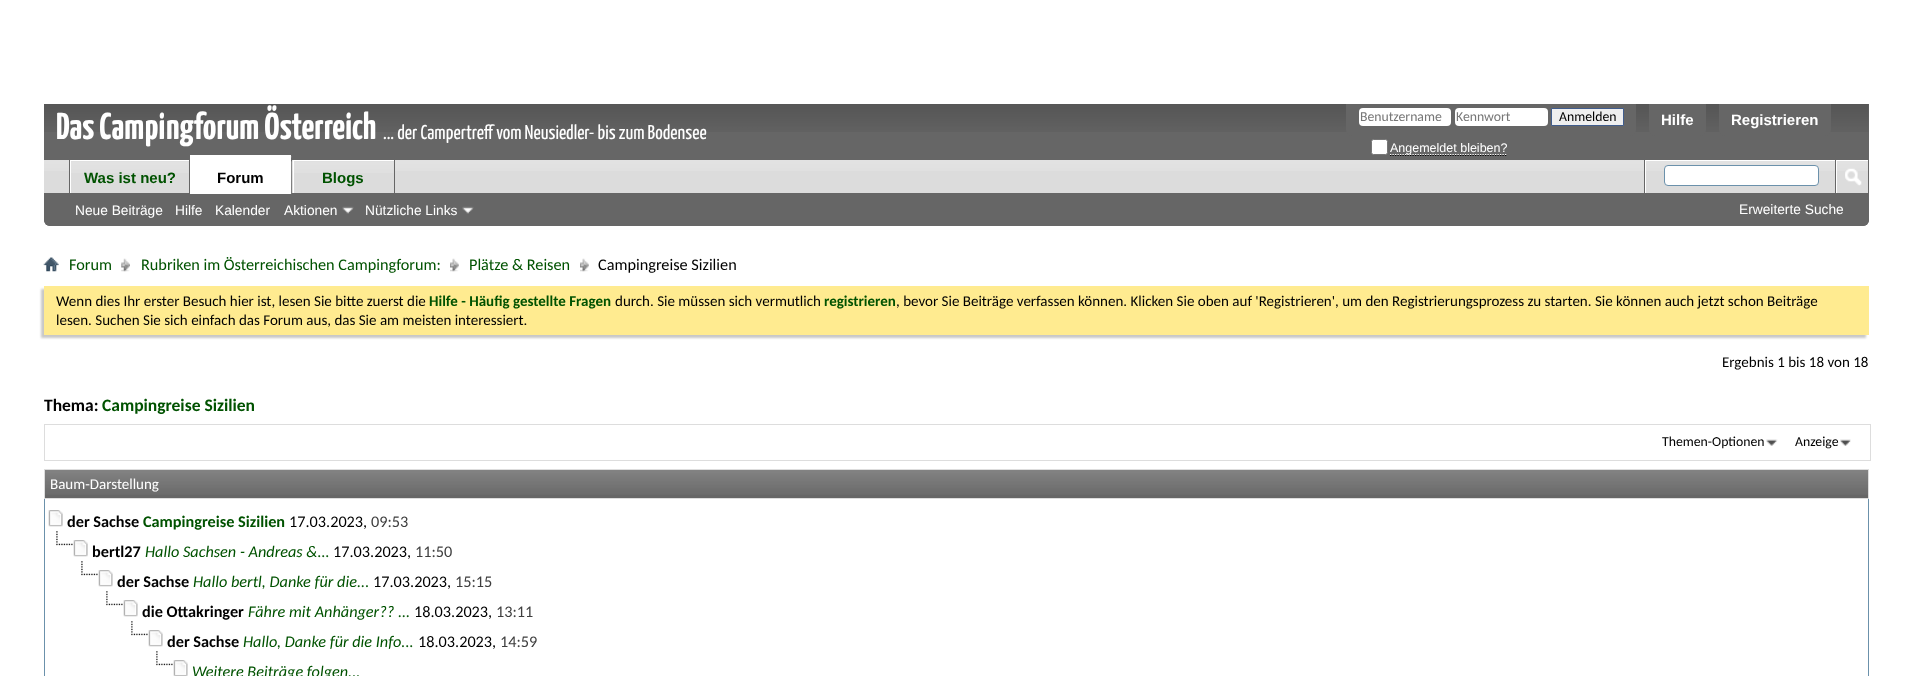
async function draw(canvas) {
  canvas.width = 1912;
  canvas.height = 676;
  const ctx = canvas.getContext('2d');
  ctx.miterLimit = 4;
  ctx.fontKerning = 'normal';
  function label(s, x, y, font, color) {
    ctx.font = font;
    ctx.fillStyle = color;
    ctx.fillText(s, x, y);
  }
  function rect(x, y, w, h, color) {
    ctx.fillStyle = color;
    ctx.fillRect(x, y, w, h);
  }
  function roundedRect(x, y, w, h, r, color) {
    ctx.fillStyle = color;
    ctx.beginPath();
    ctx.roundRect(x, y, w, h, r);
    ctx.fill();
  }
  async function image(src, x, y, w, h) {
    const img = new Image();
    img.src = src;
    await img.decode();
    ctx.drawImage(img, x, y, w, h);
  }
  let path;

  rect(0, 0, 1912, 676, '#fff');
  ctx.fillStyle = '#666';
  ctx.beginPath();
  ctx.roundRect(44, 104, 1825, 122, [0, 0, 6, 6]);
  ctx.fill();
  await image('assets/img1.png', 44, 104, 1825, 28);
  label('Das Campingforum Österreich', 56, 139, 'bold 37.5px Yanone Kaffeesatz', '#fff');
  label('... der Campertreff vom Neusiedler- bis zum Bodensee', 383, 139, '20px Yanone Kaffeesatz', '#fff');
  ctx.fillStyle = '#666';
  ctx.beginPath();
  ctx.roundRect(1346, 104, 290, 32, [0, 0, 6, 6]);
  ctx.fill();
  roundedRect(1359, 108, 92, 18, 4, '#fff');
  label('Benutzername', 1360, 121, '13.75px Carlito', '#777');
  roundedRect(1455, 108, 93, 18, 4, '#fff');
  label('Kennwort', 1456, 121, '13.75px Carlito', '#777');
  ctx.fillStyle = '#efefef';
  ctx.beginPath();
  ctx.rect(1551.5, 108.5, 72, 17);
  ctx.fill();
  ctx.strokeStyle = '#415d8d';
  ctx.stroke();
  label('Anmelden', 1559, 121, '13.75px Carlito', '#000');
  ctx.fillStyle = '#fff';
  ctx.beginPath();
  ctx.roundRect(1371.5, 139.5, 16, 15, 2);
  ctx.fill();
  ctx.strokeStyle = '#767676';
  ctx.stroke();
  path = new Path2D('M1390 155.5H1507.5');
  ctx.strokeStyle = '#000';
  ctx.lineWidth = 1.2;
  ctx.setLineDash([1.25, 1.25]);
  ctx.stroke(path);
  path = new Path2D('M1390 154.5H1507.5');
  ctx.strokeStyle = '#fff';
  ctx.stroke(path);
  label('Angemeldet bleiben?', 1390, 152, '12.5px Liberation Sans', '#fff');
  ctx.fillStyle = '#666';
  ctx.beginPath();
  ctx.roundRect(1649, 104, 57, 32, [0, 0, 6, 6]);
  ctx.fill();
  label('Hilfe', 1661, 125, 'bold 15px Liberation Sans', '#fff');
  ctx.fillStyle = '#666';
  ctx.beginPath();
  ctx.roundRect(1719, 104, 112, 32, [0, 0, 6, 6]);
  ctx.fill();
  label('Registrieren', 1731, 125, 'bold 15px Liberation Sans', '#fff');
  ctx.fillStyle = '#666';
  ctx.beginPath();
  ctx.roundRect(44, 160, 1825, 66, [0, 0, 6, 6]);
  ctx.fill();
  rect(44, 160, 1824, 33, '#dcdcdc');
  await image('assets/img2.png', 44, 160, 1824, 11);
  rect(189, 160, 1, 34, '#666');
  rect(69, 160, 1, 34, '#666');
  rect(71, 161, 118, 10, '#dcdcdc');
  await image('assets/img3.png', 71, 161, 118, 12);
  rect(70, 160, 119, 1, '#fff');
  rect(70, 160, 1, 34, '#fff');
  label('Was ist neu?', 84, 183, 'bold 15px Liberation Sans', '#005200');
  rect(291, 160, 1, 33, '#666');
  rect(293, 160, 101, 1, '#fff');
  rect(293, 160, 1, 34, '#fff');
  rect(70, 193, 224, 1, '#666');
  rect(190, 155, 101, 39, '#fff');
  await image('assets/img4.png', 291, 156, 1, 38);
  label('Forum', 217, 183, 'bold 15px Liberation Sans', '#000');
  rect(394, 160, 1, 34, '#666');
  rect(294, 161, 100, 10, '#dcdcdc');
  await image('assets/img5.png', 294, 161, 100, 12);
  label('Blogs', 322, 183, 'bold 15px Liberation Sans', '#005200');
  label('Neue Beiträge', 75, 215, '13.75px Liberation Sans', '#fff');
  label('Hilfe', 175, 215, '13.75px Liberation Sans', '#fff');
  label('Kalender', 215, 215, '13.75px Liberation Sans', '#fff');
  label('Aktionen', 284, 215, '13.75px Liberation Sans', '#fff');
  await image('assets/img6.png', 342, 206, 12, 8);
  label('Nützliche Links', 365, 215, '13.75px Liberation Sans', '#fff');
  await image('assets/img7.png', 462, 206, 12, 8);
  rect(1644, 160, 1, 33, '#666');
  rect(1645, 160, 190, 1, '#fff');
  rect(1645, 160, 1, 33, '#fff');
  ctx.beginPath();
  ctx.roundRect(1664.5, 165.5, 154, 20, 3.5);
  ctx.fill();
  ctx.strokeStyle = '#6b91ab';
  ctx.lineWidth = 1;
  ctx.setLineDash([]);
  ctx.stroke();
  rect(1835, 160, 1, 33, '#666');
  rect(1836, 160, 32, 1, '#fff');
  rect(1836, 160, 1, 33, '#fff');
  await image('assets/img8.png', 1845, 168, 17, 18);
  label('Erweiterte Suche', 1739, 214, '13.75px Liberation Sans', '#fff');
  await image('assets/img9.png', 43, 257, 16, 15);
  await image('assets/img10.png', 121, 258, 9, 14);
  label('Forum', 69, 270, '16.25px Carlito', '#005200');
  await image('assets/img11.png', 450, 258, 9, 14);
  label('Rubriken im Österreichischen Campingforum:', 141, 270, '16.25px Carlito', '#005200');
  await image('assets/img11.png', 580, 258, 9, 14);
  label('Plätze & Reisen', 469, 270, '16.25px Carlito', '#005200');
  label('Campingreise Sizilien', 598, 270, '16.25px Carlito', '#000');
  ctx.fillStyle = '#c8c8c8';
  ctx.filter = 'blur(1px)';
  ctx.beginPath();
  ctx.rect(41, 289, 1825, 49);
  ctx.fill();
  ctx.filter = 'none';
  rect(44, 286, 1825, 49, '#ffeb90');
  label('Wenn dies Ihr erster Besuch hier ist, lesen Sie bitte zuerst die', 56, 306, '15px Carlito', '#000');
  label('Hilfe - Häufig gestellte Fragen', 429, 306, 'bold 15px Carlito', '#005200');
  label('durch. Sie müssen sich vermutlich', 615, 306, '15px Carlito', '#000');
  label('registrieren', 824, 306, 'bold 15px Carlito', '#005200');
  label(', bevor Sie Beiträge verfassen können. Klicken Sie oben auf \'Registrieren\', um den Registrierungsprozess zu starten. Sie können auch jetzt schon Beiträge', 896, 306, '15px Carlito', '#000');
  label('lesen. Suchen Sie sich einfach das Forum aus, das Sie am meisten interessiert.', 56, 325, '15px Carlito', '#000');
  label('Ergebnis 1 bis 18 von 18', 1722, 367, '15px Carlito', '#000');
  label('Thema:', 44, 411, 'bold 17.5px Carlito', '#000');
  label('Campingreise Sizilien', 102, 411, 'bold 17.5px Carlito', '#005200');
  ctx.strokeStyle = '#ddd';
  ctx.strokeRect(44.5, 424.5, 1826, 36);
  await image('assets/img12.png', 1766, 439, 12, 7);
  label('Themen-Optionen', 1662, 446, '13.75px Carlito', '#000');
  await image('assets/img13.png', 1840, 439, 11, 7);
  label('Anzeige', 1795, 446, '13.75px Carlito', '#000');
  rect(45, 470, 1823, 28, '#666');
  await image('assets/img14.png', 45, 470, 1823, 25);
  ctx.strokeRect(44.5, 469.5, 1824, 29);
  label('Baum-Darstellung', 50, 489, '15px Carlito', '#fff');
  rect(1868, 499, 1, 177, '#6b91ab');
  rect(44, 499, 1, 177, '#6b91ab');
  await image('assets/img15.png', 48, 510, 15, 17);
  label('der Sachse', 67, 527, 'bold 16.25px Carlito', '#000');
  label('Campingreise Sizilien', 143, 527, 'bold 16.25px Carlito', '#005200');
  label('17.03.2023,', 289, 527, '16.25px Carlito', '#000');
  label('09:53', 371, 527, '16.25px Carlito', '#3e3e3e');
  await image('assets/img16.png', 56, 531, 17, 15);
  await image('assets/img15.png', 73, 540, 15, 17);
  label('bertl27', 92, 557, 'bold 16.25px Carlito', '#000');
  label('Hallo Sachsen - Andreas &...', 145, 557, 'italic 16.25px Carlito', '#005200');
  label('17.03.2023,', 333, 557, '16.25px Carlito', '#000');
  label('11:50', 415, 557, '16.25px Carlito', '#3e3e3e');
  await image('assets/img16.png', 81, 561, 17, 15);
  await image('assets/img17.png', 98, 570, 15, 17);
  label('der Sachse', 117, 587, 'bold 16.25px Carlito', '#000');
  label('Hallo bertl, Danke für die...', 193, 587, 'italic 16.25px Carlito', '#005200');
  label('17.03.2023,', 373, 587, '16.25px Carlito', '#000');
  label('15:15', 455, 587, '16.25px Carlito', '#3e3e3e');
  await image('assets/img18.png', 106, 591, 17, 15);
  await image('assets/img17.png', 123, 600, 15, 17);
  label('die Ottakringer', 142, 617, 'bold 16.25px Carlito', '#000');
  label('Fähre mit Anhänger?? ...', 248, 617, 'italic 16.25px Carlito', '#005200');
  label('18.03.2023,', 414, 617, '16.25px Carlito', '#000');
  label('13:11', 496, 617, '16.25px Carlito', '#3e3e3e');
  await image('assets/img18.png', 131, 621, 17, 15);
  await image('assets/img17.png', 148, 630, 15, 17);
  label('der Sachse', 167, 647, 'bold 16.25px Carlito', '#000');
  label('Hallo, Danke für die Info...', 243, 647, 'italic 16.25px Carlito', '#005200');
  label('18.03.2023,', 418, 647, '16.25px Carlito', '#000');
  label('14:59', 500, 647, '16.25px Carlito', '#3e3e3e');
  await image('assets/img18.png', 156, 651, 17, 15);
  await image('assets/img19.png', 173, 660, 15, 16);
  label('Weitere Beiträge folgen...', 192, 677, 'italic 16.25px Carlito', '#005200');
}

draw(document.querySelector('canvas'));
